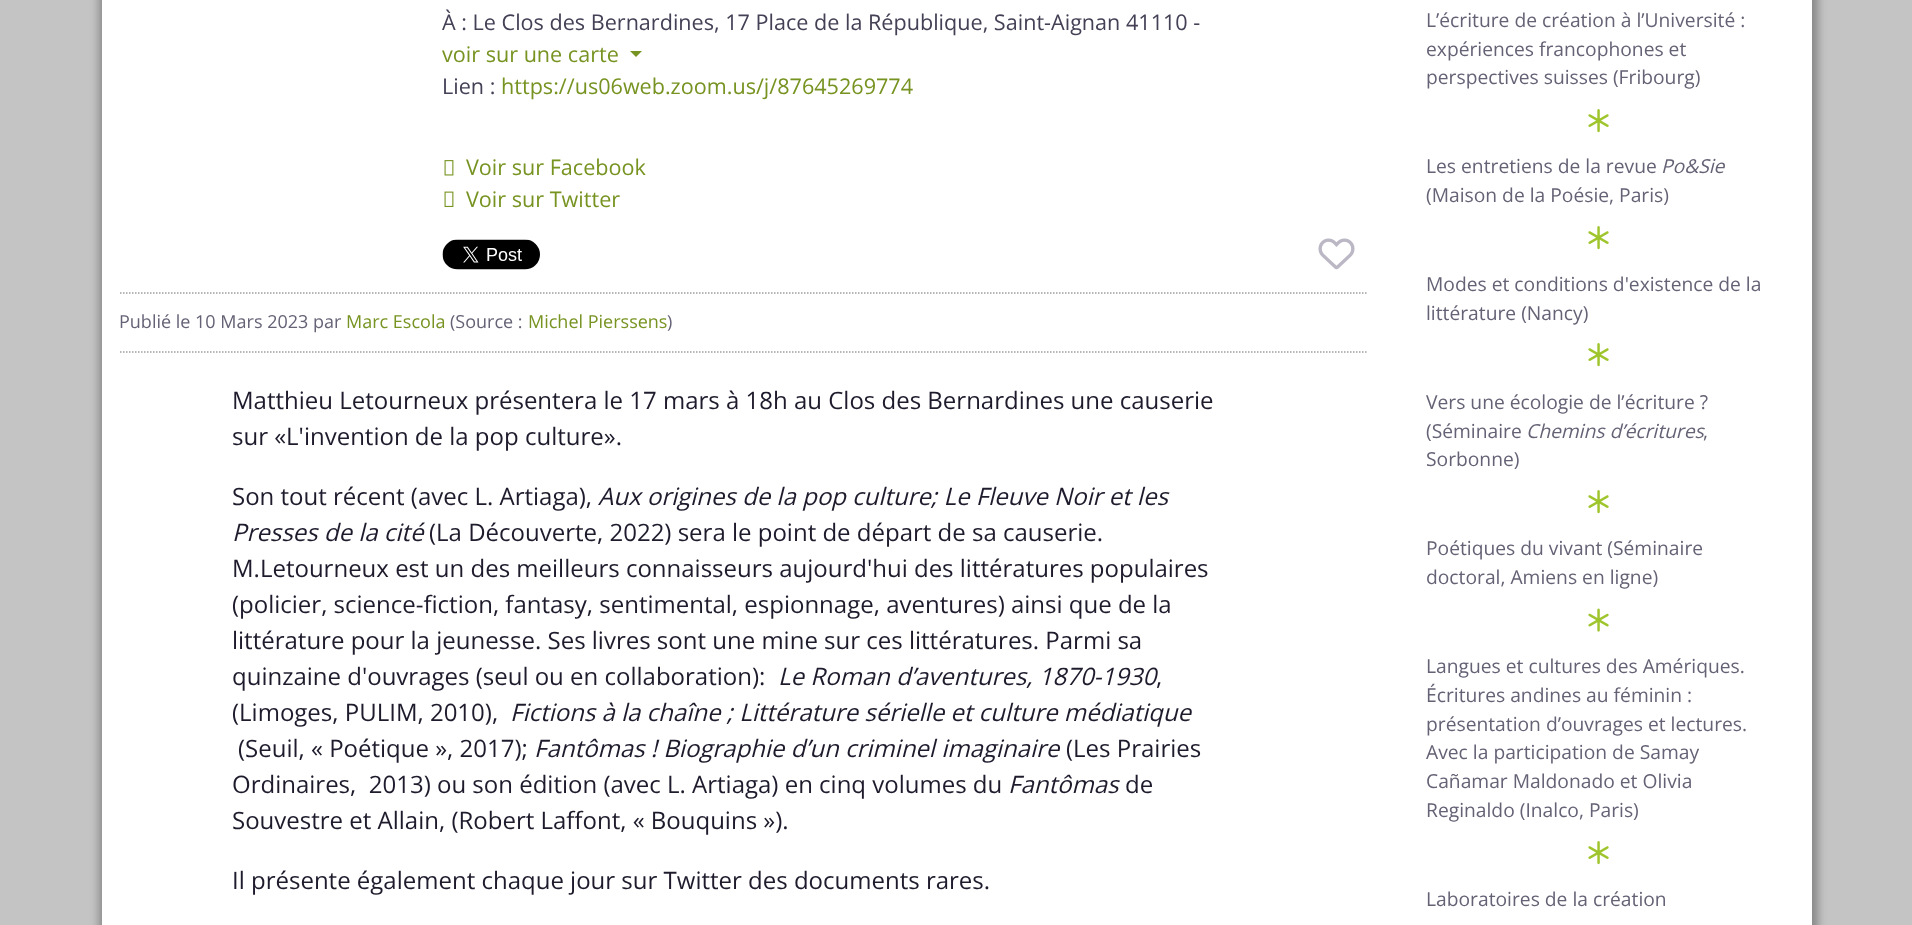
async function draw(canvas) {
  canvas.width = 1912;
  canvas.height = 925;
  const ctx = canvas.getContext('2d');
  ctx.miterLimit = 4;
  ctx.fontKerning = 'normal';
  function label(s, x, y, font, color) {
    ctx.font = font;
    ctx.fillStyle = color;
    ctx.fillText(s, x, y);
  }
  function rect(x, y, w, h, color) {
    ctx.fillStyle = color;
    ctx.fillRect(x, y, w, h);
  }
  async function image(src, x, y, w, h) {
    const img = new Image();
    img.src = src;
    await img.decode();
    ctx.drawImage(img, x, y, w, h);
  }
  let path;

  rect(0, 0, 1912, 925, '#c4c4c4');
  ctx.fillStyle = '#888';
  ctx.filter = 'blur(4px)';
  ctx.beginPath();
  ctx.rect(99, -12, 1719, 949);
  ctx.fill();
  ctx.filter = 'none';
  rect(102, 0, 1710, 925, '#fff');
  path = new Path2D('M120 352H1366.5');
  ctx.strokeStyle = '#9e9e9e';
  ctx.lineWidth = 1.5;
  ctx.setLineDash([1.5, 1.5]);
  ctx.stroke(path);
  label('À : Le Clos des Bernardines, 17 Place de la République, Saint-Aignan 41110 -', 442, 30, '21.6px Open Sans', '#454056');
  label('voir sur une carte', 442, 62, '21.6px Open Sans', '#779321');
  path = new Path2D('M630 51H642L636 57Z');
  ctx.fill(path);
  label('Lien :', 442, 94, '21.6px Open Sans', '#454056');
  label('https://us06web.zoom.us/j/87645269774', 501, 94, '21.6px Open Sans', '#779321');
  await image('assets/img1.png', 444, 160, 10, 16);
  label('Voir sur Facebook', 466, 175, '21.6px Open Sans', '#779321');
  await image('assets/img2.png', 444, 191, 10, 16);
  label('Voir sur Twitter', 466, 207, '21.6px Open Sans', '#779321');
  await image('assets/img3.png', 442, 239, 98, 31);
  await image('assets/img4.png', 1318, 238, 37, 32);
  path = new Path2D('M120 293H1366.5');
  ctx.stroke(path);
  label('Publié le 10 Mars 2023 par', 119, 328, '18px Open Sans', '#666276');
  label('Marc Escola', 346, 328, '18px Open Sans', '#779321');
  label('(Source :', 450, 328, '18px Open Sans', '#666276');
  label('Michel Pierssens', 528, 328, '18px Open Sans', '#779321');
  label(')', 667, 328, '18px Open Sans', '#666276');
  label('Matthieu Letourneux présentera le 17 mars à 18h au Clos des Bernardines une causerie', 232, 409, '24px Open Sans', '#1f1b2d');
  label('sur «L\'invention de la pop culture».', 232, 445, '24px Open Sans', '#1f1b2d');
  label('Son tout récent (avec L. Artiaga),', 232, 505, '24px Open Sans', '#1f1b2d');
  label('Aux origines de la pop culture; Le Fleuve Noir et les', 598, 505, 'italic 24px Open Sans', '#1f1b2d');
  label('Presses de la cité', 232, 541, 'italic 24px Open Sans', '#1f1b2d');
  label('(La Découverte, 2022) sera le point de départ de sa causerie.', 429, 541, '24px Open Sans', '#1f1b2d');
  label('M.Letourneux est un des meilleurs connaisseurs aujourd\'hui des littératures populaires', 232, 577, '24px Open Sans', '#1f1b2d');
  label('(policier, science-fiction, fantasy, sentimental, espionnage, aventures) ainsi que de la', 232, 613, '24px Open Sans', '#1f1b2d');
  label('littérature pour la jeunesse. Ses livres sont une mine sur ces littératures. Parmi sa', 232, 649, '24px Open Sans', '#1f1b2d');
  label('quinzaine d\'ouvrages (seul ou en collaboration):', 232, 685, '24px Open Sans', '#1f1b2d');
  label('Le Roman d’aventures, 1870-1930', 778, 685, 'italic 24px Open Sans', '#1f1b2d');
  label(',', 1156, 685, '24px Open Sans', '#1f1b2d');
  label('(Limoges, PULIM, 2010),', 232, 721, '24px Open Sans', '#1f1b2d');
  label('Fictions à la chaîne ; Littérature sérielle et culture médiatique', 510, 721, 'italic 24px Open Sans', '#1f1b2d');
  label('(Seuil, « Poétique », 2017);', 238, 757, '24px Open Sans', '#1f1b2d');
  label('Fantômas ! Biographie d’un criminel imaginaire', 534, 757, 'italic 24px Open Sans', '#1f1b2d');
  label('(Les Prairies', 1066, 757, '24px Open Sans', '#1f1b2d');
  label('Ordinaires,  2013) ou son édition (avec L. Artiaga) en cinq volumes du', 232, 793, '24px Open Sans', '#1f1b2d');
  label('Fantômas', 1008, 793, 'italic 24px Open Sans', '#1f1b2d');
  label('de', 1125, 793, '24px Open Sans', '#1f1b2d');
  label('Souvestre et Allain, (Robert Laffont, « Bouquins »).', 232, 829, '24px Open Sans', '#1f1b2d');
  label('Il présente également chaque jour sur Twitter des documents rares.', 232, 889, '24px Open Sans', '#1f1b2d');
  label('L’écriture de création à l’Université :', 1426, 27, '19.25px Open Sans', '#666276');
  label('expériences francophones et', 1426, 56, '19.25px Open Sans', '#666276');
  label('perspectives suisses (Fribourg)', 1426, 84, '19.25px Open Sans', '#666276');
  await image('assets/img5.png', 1588, 109, 21, 24);
  label('Les entretiens de la revue', 1426, 173, '19.25px Open Sans', '#666276');
  label('Po&Sie', 1661, 173, 'italic 19.25px Open Sans', '#666276');
  label('(Maison de la Poésie, Paris)', 1426, 202, '19.25px Open Sans', '#666276');
  await image('assets/img5.png', 1588, 226, 21, 24);
  label('Modes et conditions d\'existence de la', 1426, 291, '19.25px Open Sans', '#666276');
  label('littérature (Nancy)', 1426, 320, '19.25px Open Sans', '#666276');
  await image('assets/img5.png', 1588, 343, 21, 24);
  label('Vers une écologie de l’écriture ?', 1426, 409, '19.25px Open Sans', '#666276');
  label('(Séminaire', 1426, 438, '19.25px Open Sans', '#666276');
  label('Chemins d’écritures', 1526, 438, 'italic 19.25px Open Sans', '#666276');
  label(',', 1703, 438, '19.25px Open Sans', '#666276');
  label('Sorbonne)', 1426, 466, '19.25px Open Sans', '#666276');
  await image('assets/img5.png', 1588, 490, 21, 24);
  label('Poétiques du vivant (Séminaire', 1426, 555, '19.25px Open Sans', '#666276');
  label('doctoral, Amiens en ligne)', 1426, 584, '19.25px Open Sans', '#666276');
  await image('assets/img6.png', 1588, 608, 21, 24);
  label('Langues et cultures des Amériques.', 1426, 673, '19.25px Open Sans', '#666276');
  label('Écritures andines au féminin :', 1426, 702, '19.25px Open Sans', '#666276');
  label('présentation d’ouvrages et lectures.', 1426, 731, '19.25px Open Sans', '#666276');
  label('Avec la participation de Samay', 1426, 759, '19.25px Open Sans', '#666276');
  label('Cañamar Maldonado et Olivia', 1426, 788, '19.25px Open Sans', '#666276');
  label('Reginaldo (Inalco, Paris)', 1426, 817, '19.25px Open Sans', '#666276');
  await image('assets/img5.png', 1588, 841, 21, 24);
  label('Laboratoires de la création', 1426, 906, '19.25px Open Sans', '#666276');
}

draw(document.querySelector('canvas'));
